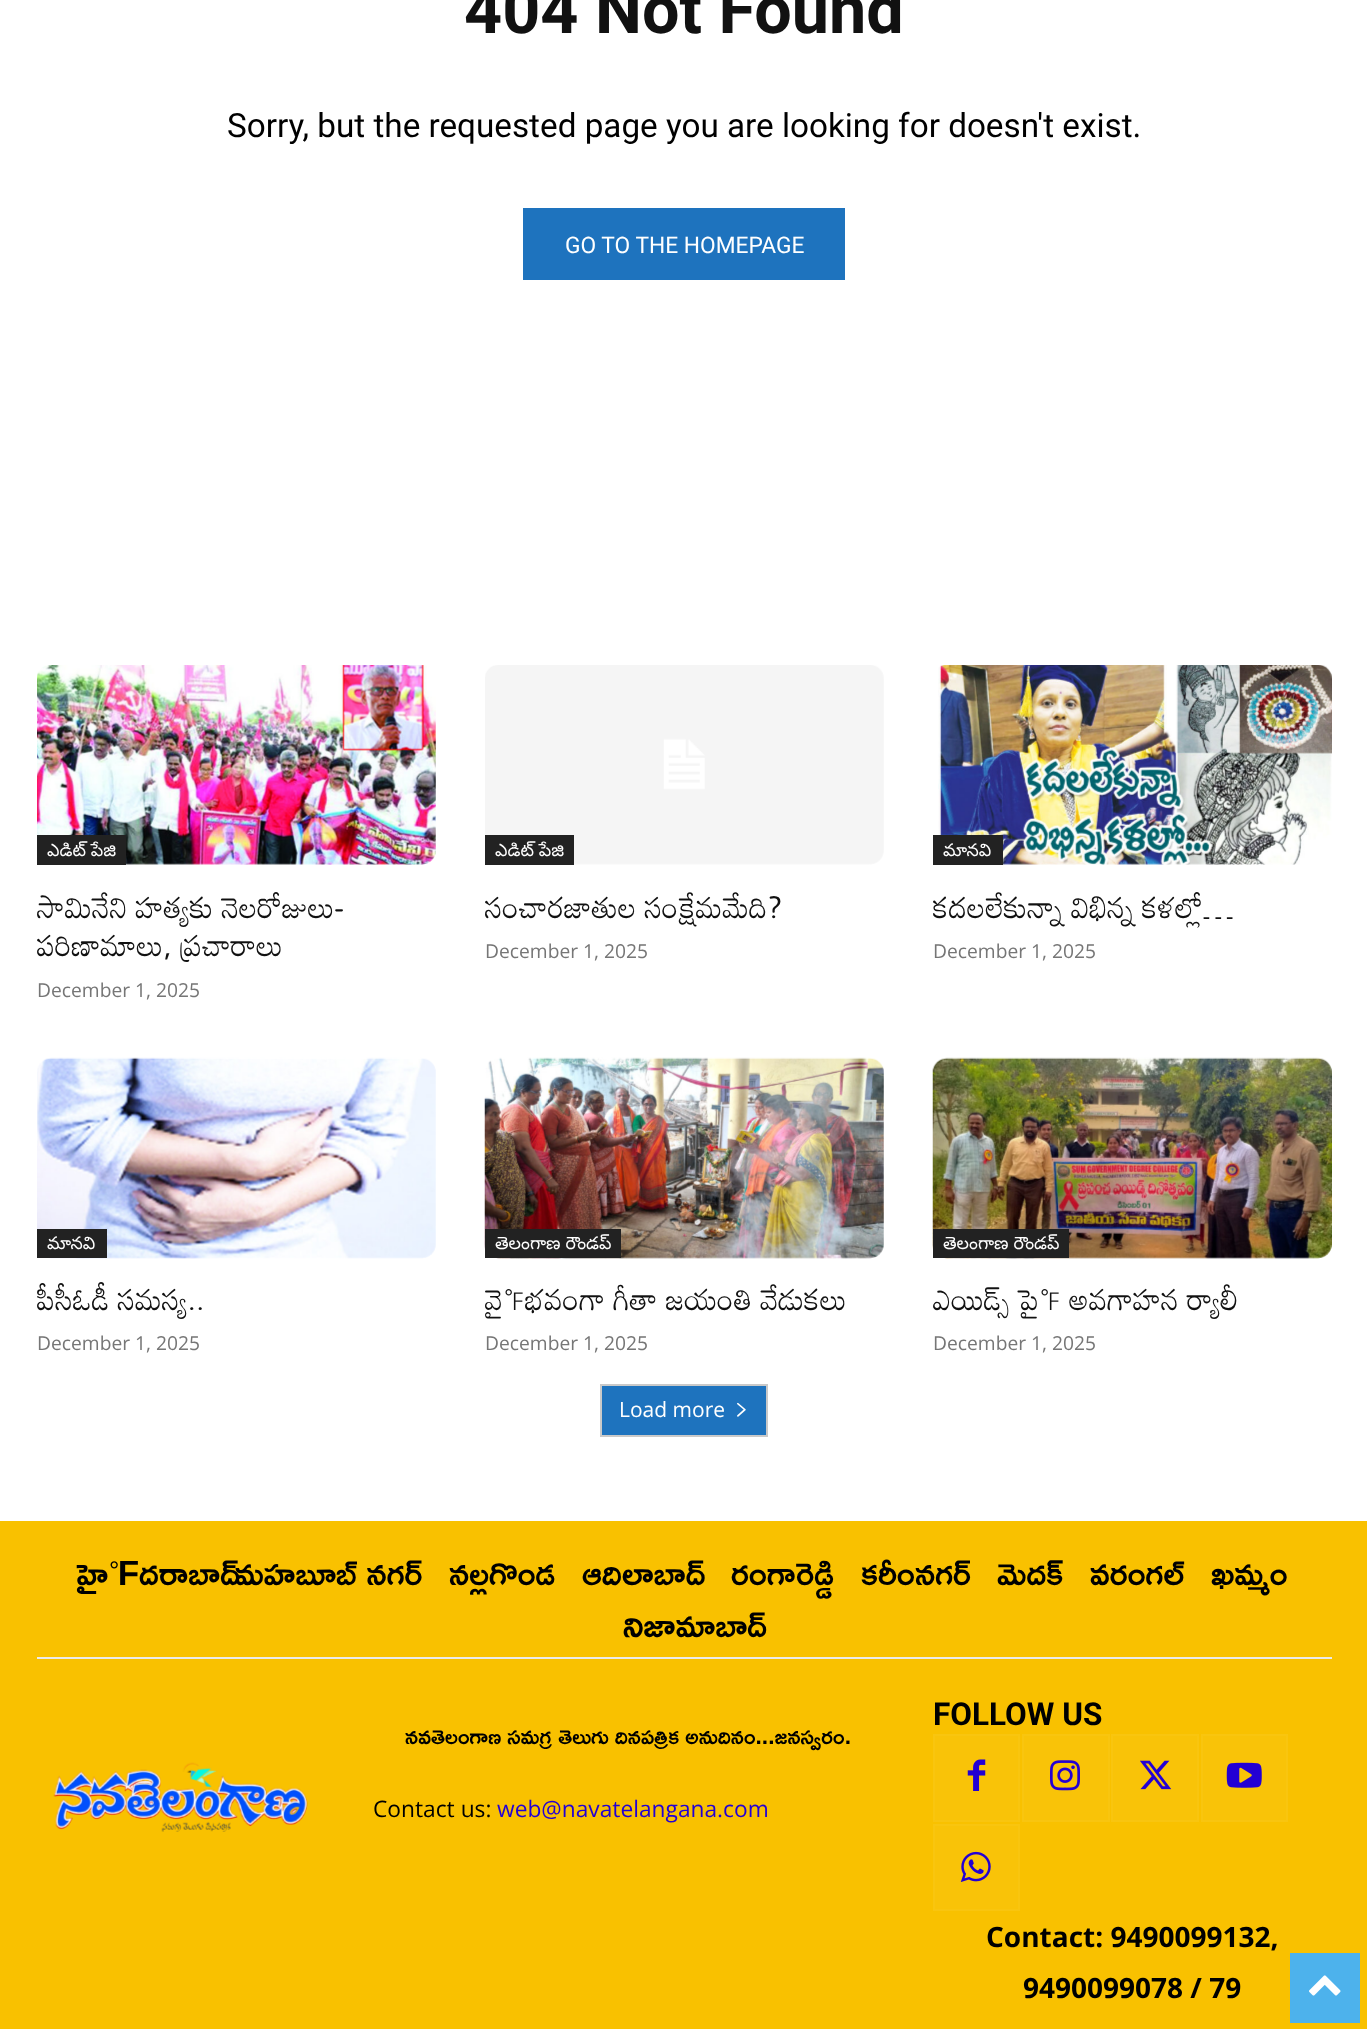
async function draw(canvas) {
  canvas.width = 1367;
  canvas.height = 2029;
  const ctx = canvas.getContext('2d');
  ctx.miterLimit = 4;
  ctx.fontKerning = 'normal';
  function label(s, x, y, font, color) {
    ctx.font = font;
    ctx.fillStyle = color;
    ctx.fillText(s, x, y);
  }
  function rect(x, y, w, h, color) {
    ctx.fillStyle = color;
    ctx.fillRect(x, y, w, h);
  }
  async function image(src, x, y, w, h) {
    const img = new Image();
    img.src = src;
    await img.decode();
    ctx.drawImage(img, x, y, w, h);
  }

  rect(0, 0, 1367, 2029, '#fff');
  label('404 Not Found', 464, 33, 'bold 66.5px Roboto', '#111');
  label('Sorry, but the requested page you are looking for doesn\'t exist.', 227, 137, '33.25px Roboto', '#000');
  rect(523, 208, 322, 72, '#1e73be');
  label('GO TO THE HOMEPAGE', 565, 253, '22.75px Roboto', '#fff');
  await image('assets/img1.png', 37, 665, 399, 200);
  rect(37, 835, 89, 30, '#222');
  label('ఎడిట్ పేజి', 47, 856, '17.5px Noto Sans Telugu', '#fff');
  label('సామినేని హత్యకు నెలరోజులు-', 37, 918, '29.75px Mandali', '#111');
  label('పరిణామాలు, ప్రచారాలు', 37, 956, '29.75px Mandali', '#111');
  label('December 1, 2025', 37, 997, '19.25px Open Sans', '#767676');
  await image('assets/img2.png', 485, 665, 399, 200);
  rect(485, 835, 89, 30, '#222');
  label('ఎడిట్ పేజి', 495, 856, '17.5px Noto Sans Telugu', '#fff');
  label('సంచారజాతుల సంక్షేమమేది?', 485, 918, '29.75px Mandali', '#111');
  label('December 1, 2025', 485, 958, '19.25px Open Sans', '#767676');
  await image('assets/img3.png', 938, 665, 394, 200);
  rect(933, 835, 70, 30, '#222');
  label('మానవి', 943, 856, '17.5px Noto Sans Telugu', '#fff');
  label('కదలలేకున్నా విభిన్న కళల్లో…', 933, 918, '29.75px Mandali', '#111');
  label('December 1, 2025', 933, 958, '19.25px Open Sans', '#767676');
  await image('assets/img4.png', 37, 1057, 399, 202);
  rect(37, 1229, 70, 29, '#222');
  label('మానవి', 47, 1249, '17.5px Noto Sans Telugu', '#fff');
  label('పీసీఓడీ సమస్య..', 37, 1310, '29.75px Mandali', '#111');
  label('December 1, 2025', 37, 1350, '19.25px Open Sans', '#767676');
  await image('assets/img5.png', 484, 1057, 400, 202);
  rect(485, 1229, 136, 29, '#222');
  label('తెలంగాణ రౌండప్', 495, 1249, '17.5px Noto Sans Telugu', '#fff');
  label('వైభవంగా గీతా జయంతి వేడుకలు', 485, 1310, '29.75px Mandali', '#111');
  label('December 1, 2025', 485, 1350, '19.25px Open Sans', '#767676');
  await image('assets/img6.png', 932, 1057, 400, 202);
  rect(933, 1229, 136, 29, '#222');
  label('తెలంగాణ రౌండప్', 943, 1249, '17.5px Noto Sans Telugu', '#fff');
  label('ఎయిడ్స్ పై అవగాహన ర్యాలీ', 933, 1310, '29.75px Mandali', '#111');
  label('December 1, 2025', 933, 1350, '19.25px Open Sans', '#767676');
  ctx.fillStyle = '#1e73be';
  ctx.beginPath();
  ctx.rect(601, 1385, 166, 51);
  ctx.fill();
  ctx.strokeStyle = '#c9c9c9';
  ctx.lineWidth = 2;
  ctx.stroke();
  label('Load more', 619, 1417, '21px Open Sans', '#fff');
  await image('assets/img7.png', 737, 1402, 9, 15);
  rect(0, 1521, 1367, 508, '#f9c100');
  label('హైదరాబాద్', 76, 1585, '35px Ramabhadra', '#000');
  label('మహబూబ్ నగర్', 235, 1585, '35px Ramabhadra', '#000');
  label('నల్లగొండ', 449, 1585, '35px Ramabhadra', '#000');
  label('ఆదిలాబాద్', 582, 1585, '35px Ramabhadra', '#000');
  label('రంగారెడ్డి', 731, 1585, '35px Ramabhadra', '#000');
  label('కరీంనగర్', 861, 1585, '35px Ramabhadra', '#000');
  label('మెదక్', 997, 1585, '35px Ramabhadra', '#000');
  label('వరంగల్', 1090, 1585, '35px Ramabhadra', '#000');
  label('ఖమ్మం', 1211, 1585, '35px Ramabhadra', '#000');
  label('నిజామాబాద్', 623, 1637, '35px Ramabhadra', '#000');
  rect(37, 1657, 1295, 2, '#ebebeb');
  await image('assets/img8.png', 53, 1762, 255, 70);
  label('నవతెలంగాణ సమగ్ర తెలుగు దినపత్రిక అనుదినం...జనస్వరం.', 405, 1744, '22.75px Ramabhadra', '#000');
  label('Contact us:', 373, 1817, '22.75px Open Sans', '#000');
  label('web@navatelangana.com', 497, 1817, '22.75px Open Sans', '#2300d4');
  label('FOLLOW US', 933, 1725, 'bold 31.5px Roboto', '#000');
  ctx.fillStyle = '#f9c308';
  ctx.beginPath();
  ctx.rect(934, 1735, 85, 86);
  ctx.fill();
  ctx.strokeStyle = '#f9c50f';
  ctx.stroke();
  await image('assets/img9.png', 967, 1759, 19, 32);
  ctx.beginPath();
  ctx.rect(1023, 1735, 86, 86);
  ctx.fill();
  ctx.stroke();
  await image('assets/img10.png', 1050, 1760, 30, 31);
  ctx.beginPath();
  ctx.rect(1112, 1735, 86, 86);
  ctx.fill();
  ctx.stroke();
  await image('assets/img11.png', 1140, 1760, 32, 30);
  ctx.beginPath();
  ctx.rect(1202, 1735, 85, 86);
  ctx.fill();
  ctx.stroke();
  await image('assets/img12.png', 1226, 1762, 36, 26);
  ctx.beginPath();
  ctx.rect(934, 1825, 85, 85);
  ctx.fill();
  ctx.stroke();
  await image('assets/img13.png', 960, 1851, 31, 31);
  label('Contact: 9490099132,', 986, 1947, 'bold 28px Open Sans', '#000');
  label('9490099078 / 79', 1023, 1998, 'bold 28px Open Sans', '#000');
  rect(1290, 1953, 70, 70, '#4db2ec');
  await image('assets/img14.png', 1309, 1975, 32, 21);
}

draw(document.querySelector('canvas'));
